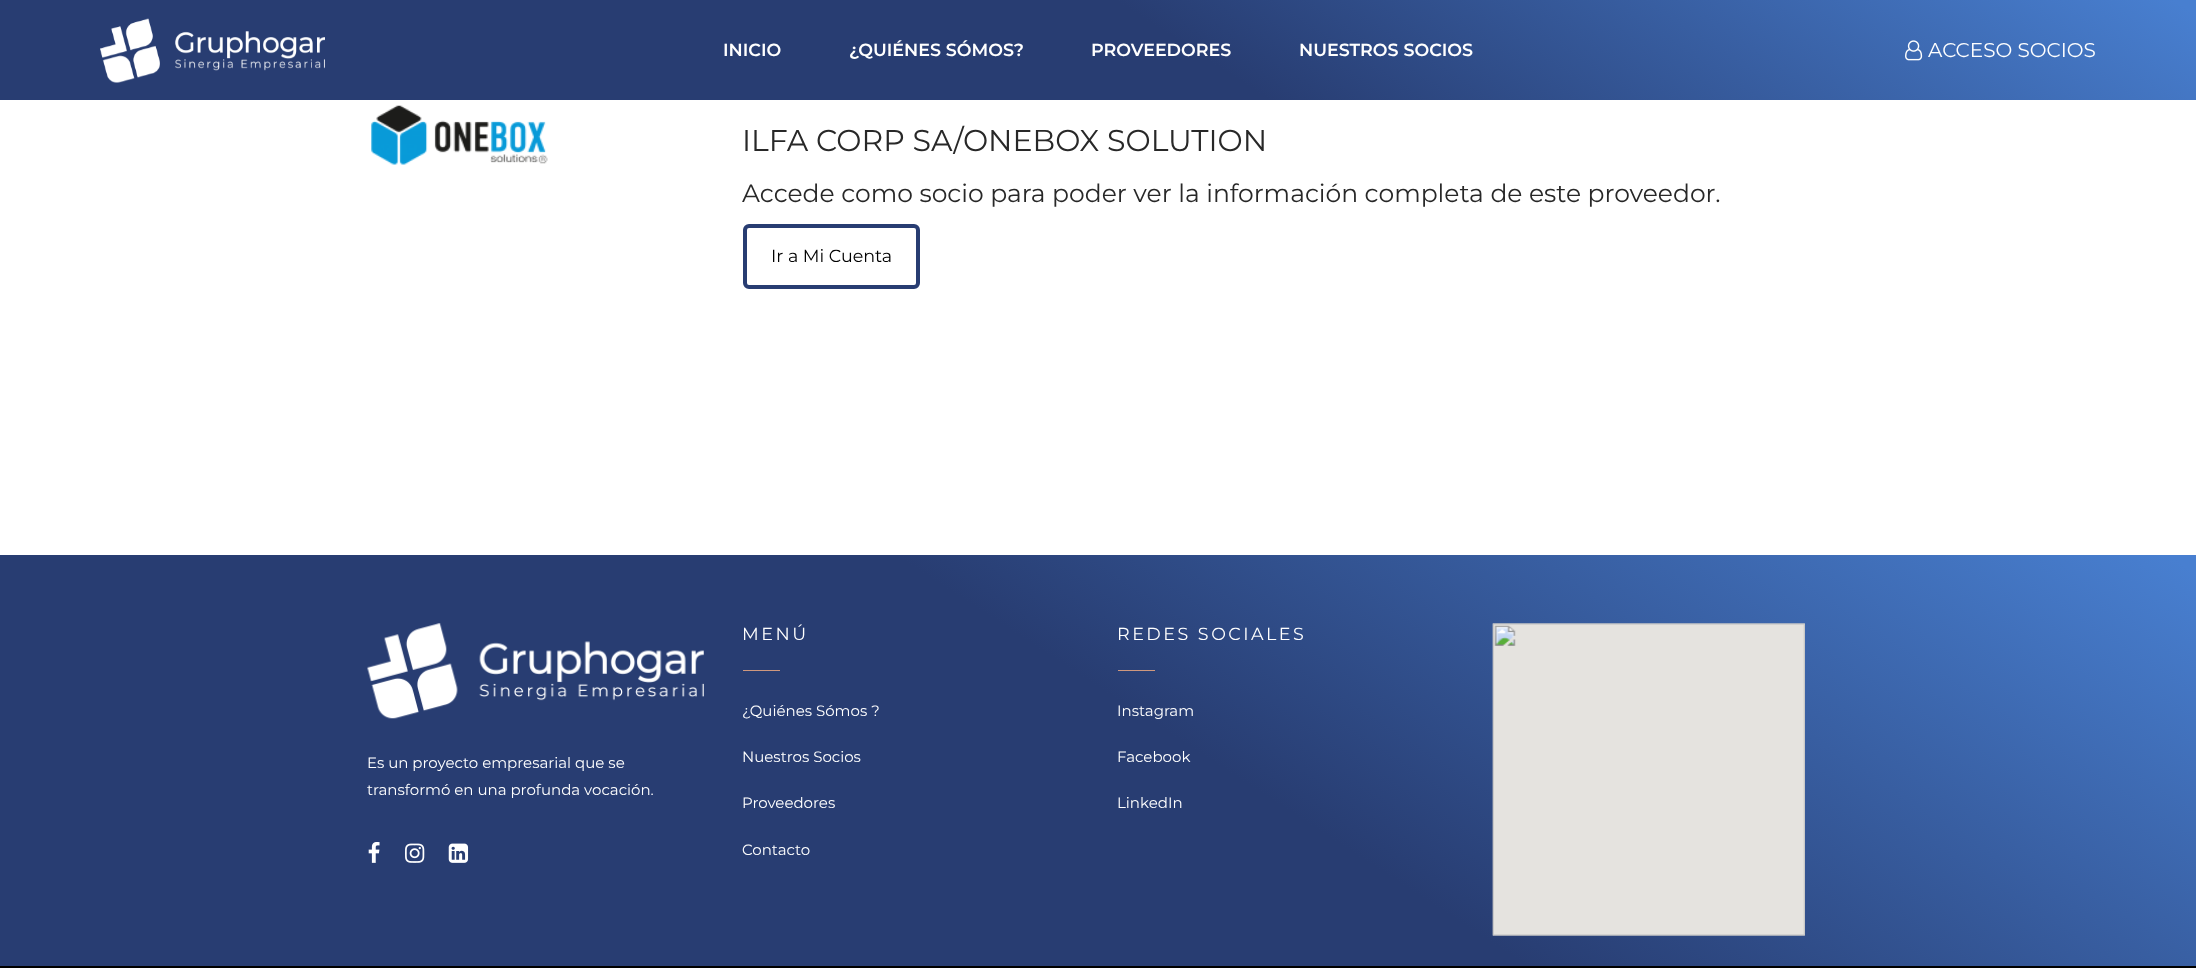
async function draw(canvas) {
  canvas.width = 2196;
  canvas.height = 968;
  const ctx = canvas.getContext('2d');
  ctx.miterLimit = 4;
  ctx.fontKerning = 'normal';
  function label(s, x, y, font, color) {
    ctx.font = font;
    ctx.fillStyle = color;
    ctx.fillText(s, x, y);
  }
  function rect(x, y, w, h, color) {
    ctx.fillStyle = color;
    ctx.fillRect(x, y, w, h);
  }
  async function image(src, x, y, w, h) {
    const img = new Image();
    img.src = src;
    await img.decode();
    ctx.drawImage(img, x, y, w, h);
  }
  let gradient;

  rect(0, 0, 2196, 968, '#fff');
  gradient = ctx.createLinearGradient(750, 587, 1447, -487);
  gradient.addColorStop(0.54, '#283d72');
  gradient.addColorStop(0.99, '#487fd0');
  ctx.fillStyle = gradient;
  ctx.fillRect(0, 0, 2196, 100);
  await image('assets/img1.png', 100, 18, 225, 65);
  label('INICIO', 723, 56, '600 17.5px Montserrat', '#fff');
  label('¿QUIÉNES SÓMOS?', 849, 56, '600 17.5px Montserrat', '#fff');
  label('PROVEEDORES', 1091, 56, '600 17.5px Montserrat', '#fff');
  label('NUESTROS SOCIOS', 1299, 56, '600 17.5px Montserrat', '#fff');
  await image('assets/img2.png', 1905, 40, 18, 21);
  label('ACCESO SOCIOS', 1928, 57, '100 20px Montserrat', '#fff');
  await image('assets/img3.png', 371, 105, 177, 60);
  label('ILFA CORP SA/ONEBOX SOLUTION', 742, 151, '100 30px Montserrat', '#282828');
  label('Accede como socio para poder ver la información completa de este proveedor.', 742, 202, '100 25px Montserrat', '#282828');
  ctx.beginPath();
  ctx.roundRect(745, 226, 173, 61, 4);
  ctx.strokeStyle = '#283d72';
  ctx.lineWidth = 4;
  ctx.stroke();
  label('Ir a Mi Cuenta', 771, 262, '100 17.5px Montserrat', '#000');
  gradient = ctx.createLinearGradient(678, 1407, 1518, 114);
  gradient.addColorStop(0.54, '#283d72');
  gradient.addColorStop(0.99, '#487fd0');
  ctx.fillStyle = gradient;
  ctx.fillRect(0, 555, 2196, 411);
  await image('assets/img4.png', 367, 623, 337, 96);
  label('Es un proyecto empresarial que se', 367, 768, '100 15px Montserrat', '#fff');
  label('transformó en una profunda vocación.', 367, 795, '100 15px Montserrat', '#fff');
  await image('assets/img5.png', 368, 842, 12, 21);
  await image('assets/img6.png', 405, 843, 20, 20);
  await image('assets/img7.png', 448, 843, 21, 20);
  ctx.letterSpacing = '2.5px';
  label('MENÚ', 742, 640, '100 17.5px Montserrat', '#fff');
  rect(743, 670, 37, 1, '#cf987e');
  ctx.letterSpacing = '0px';
  label('¿Quiénes Sómos ?', 742, 716, '100 15px Montserrat', '#fff');
  label('Nuestros Socios', 742, 762, '100 15px Montserrat', '#fff');
  label('Proveedores', 742, 808, '100 15px Montserrat', '#fff');
  label('Contacto', 742, 855, '100 15px Montserrat', '#fff');
  ctx.letterSpacing = '2.5px';
  label('REDES SOCIALES', 1117, 640, '100 17.5px Montserrat', '#fff');
  rect(1118, 670, 37, 1, '#cf987e');
  ctx.letterSpacing = '0px';
  label('Instagram', 1117, 716, '100 15px Montserrat', '#fff');
  label('Facebook', 1117, 762, '100 15px Montserrat', '#fff');
  label('LinkedIn', 1117, 808, '100 15px Montserrat', '#fff');
  await image('assets/img8.png', 1492, 623, 313, 313);
  rect(0, 966, 2196, 2, '#000');
}

draw(document.querySelector('canvas'));
